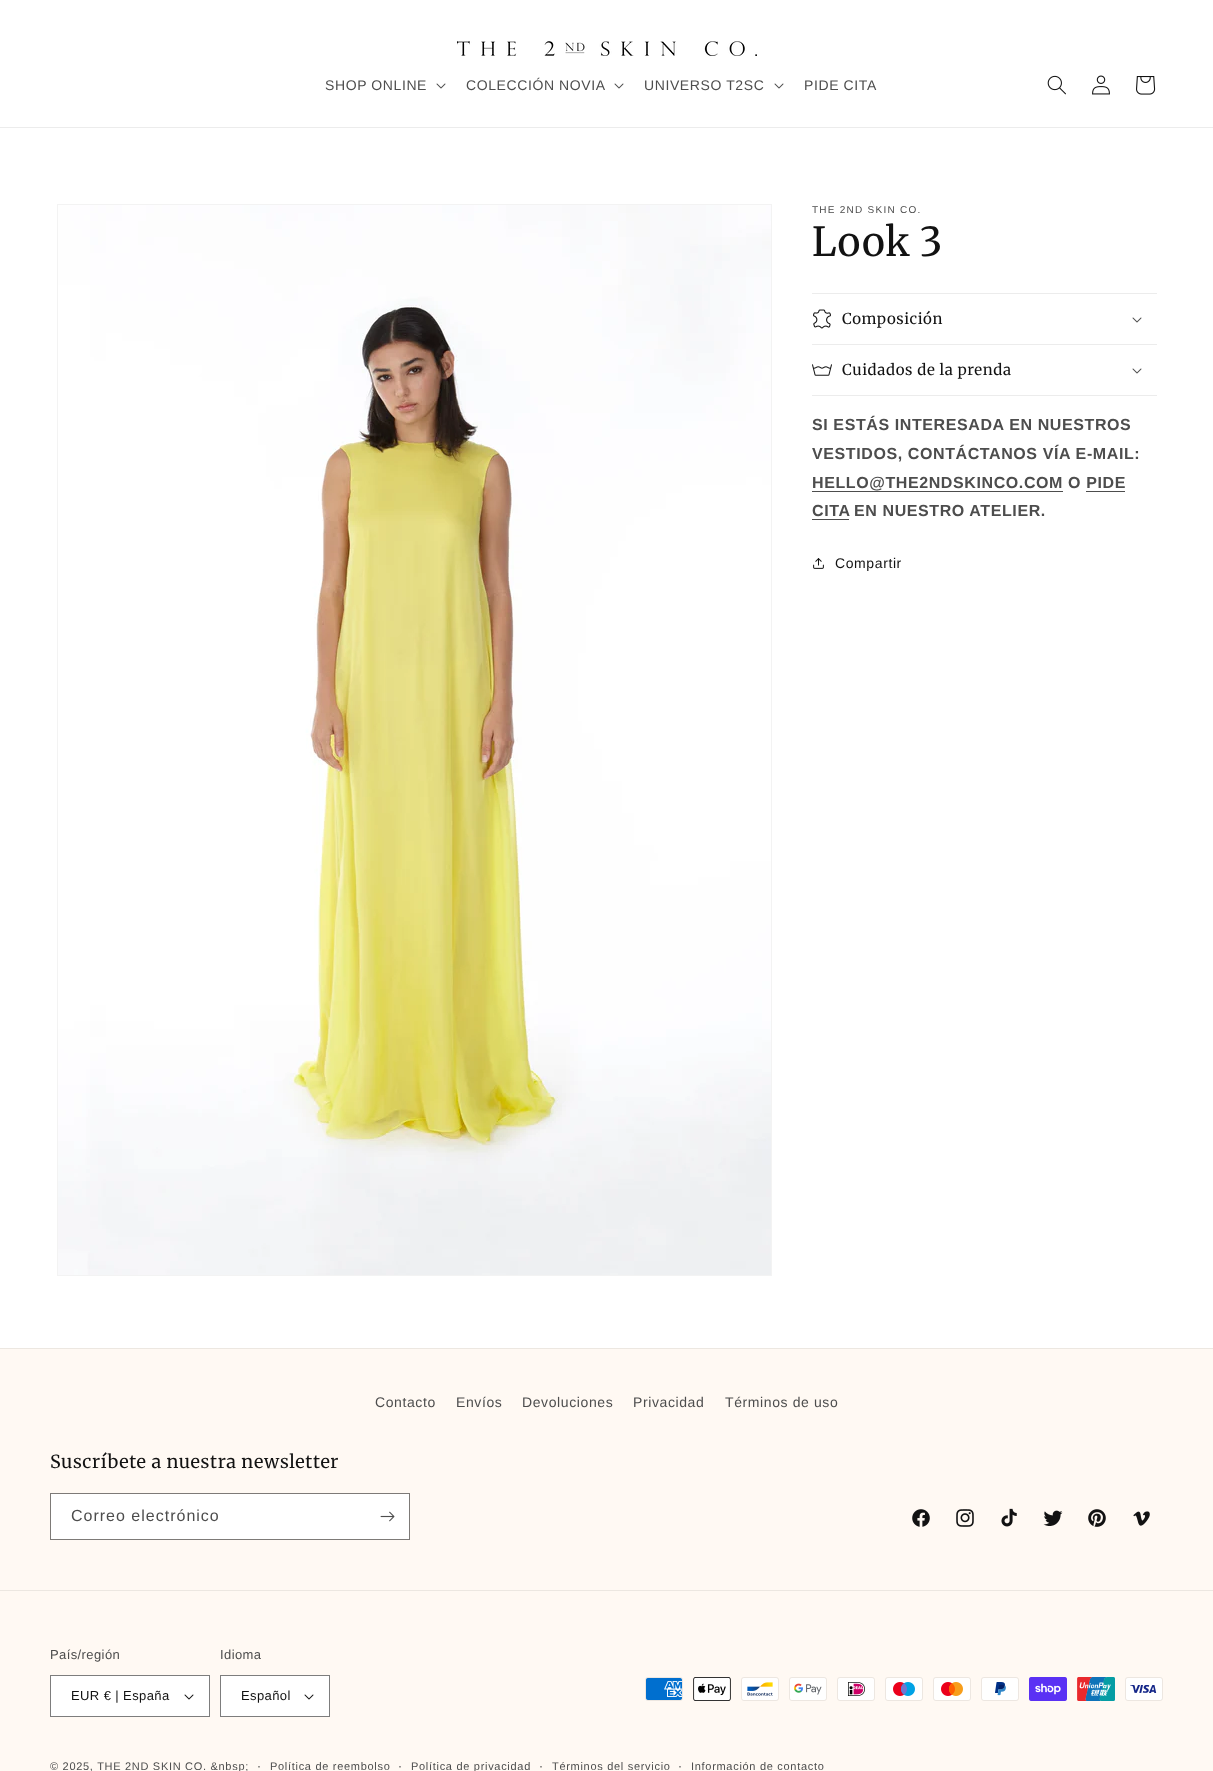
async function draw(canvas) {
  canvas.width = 1213;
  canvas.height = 1771;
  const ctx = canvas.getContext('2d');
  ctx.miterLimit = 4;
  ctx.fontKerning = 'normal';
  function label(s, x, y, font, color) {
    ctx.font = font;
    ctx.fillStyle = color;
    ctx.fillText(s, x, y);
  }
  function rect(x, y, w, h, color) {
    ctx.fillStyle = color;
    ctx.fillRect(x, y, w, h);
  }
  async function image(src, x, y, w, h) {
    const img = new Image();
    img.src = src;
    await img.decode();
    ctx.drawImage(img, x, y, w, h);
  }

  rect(0, 0, 1213, 1771, '#fff');
  rect(0, 127, 1213, 1, '#ececec');
  await image('assets/img1.png', 457, 41, 300, 15);
  ctx.letterSpacing = '0.6px';
  label('SHOP ONLINE', 325, 90, '14px Liberation Sans', '#4d4d4d');
  await image('assets/img2.png', 436, 83, 10, 6);
  label('COLECCIÓN NOVIA', 466, 90, '14px Liberation Sans', '#4d4d4d');
  await image('assets/img2.png', 614, 83, 10, 6);
  label('UNIVERSO T2SC', 644, 90, '14px Liberation Sans', '#4d4d4d');
  await image('assets/img2.png', 774, 83, 10, 6);
  label('PIDE CITA', 804, 90, '14px Liberation Sans', '#4d4d4d');
  await image('assets/img3.png', 1047, 75, 19, 20);
  await image('assets/img4.png', 1092, 75, 18, 20);
  await image('assets/img5.png', 1136, 76, 20, 19);
  ctx.strokeStyle = '#f3f3f3';
  ctx.strokeRect(57.5, 204.5, 714, 1071);
  await image('assets/img6.png', 58, 205, 713, 1070);
  ctx.letterSpacing = '1.25px';
  label('THE 2ND SKIN CO.', 812, 213, '10px Liberation Sans', '#4d4d4d');
  ctx.letterSpacing = '0.6px';
  label('Look 3', 812, 256, '40px Merriweather', '#121212');
  rect(812, 293, 345, 1, '#ececec');
  rect(812, 344, 345, 1, '#ececec');
  await image('assets/img7.png', 813, 309, 18, 20);
  label('Composición', 842, 324, '15px "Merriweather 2"', '#121212');
  await image('assets/img2.png', 1132, 317, 10, 6);
  rect(812, 395, 345, 1, '#ececec');
  await image('assets/img8.png', 812, 364, 20, 12);
  label('Cuidados de la prenda', 842, 375, '15px "Merriweather 2"', '#121212');
  await image('assets/img2.png', 1132, 368, 10, 6);
  label('SI ESTÁS INTERESADA EN NUESTROS', 812, 430, 'bold 16px Liberation Sans', '#4d4d4d');
  label('VESTIDOS, CONTÁCTANOS VÍA E-MAIL:', 812, 459, 'bold 16px Liberation Sans', '#4d4d4d');
  label('HELLO@THE2NDSKINCO.COM O PIDE', 812, 488, 'bold 16px Liberation Sans', '#4d4d4d');
  rect(812, 491, 251, 1, '#4d4d4d');
  label('CITA', 812, 516, 'bold 16px Liberation Sans', '#4d4d4d');
  rect(1086, 491, 39, 1, '#4d4d4d');
  rect(812, 519, 37, 1, '#4d4d4d');
  label('EN NUESTRO ATELIER.', 854, 516, 'bold 16px Liberation Sans', '#4d4d4d');
  await image('assets/img9.png', 813, 558, 11, 11);
  label('Compartir', 835, 568, '14px Liberation Sans', '#121212');
  rect(0, 1349, 1213, 422, '#fff9f3');
  rect(0, 1348, 1213, 1, '#ece7e1');
  label('Contacto', 375, 1407, '14px Liberation Sans', '#4d4d4d');
  label('Envíos', 456, 1407, '14px Liberation Sans', '#4d4d4d');
  label('Devoluciones', 522, 1407, '14px Liberation Sans', '#4d4d4d');
  label('Privacidad', 633, 1407, '14px Liberation Sans', '#4d4d4d');
  label('Términos de uso', 725, 1407, '14px Liberation Sans', '#4d4d4d');
  label('Suscríbete a nuestra newsletter', 50, 1468, '18px "Merriweather 2"', '#121212');
  rect(51, 1494, 358, 45, '#fff');
  ctx.strokeStyle = '#7d7a77';
  ctx.strokeRect(50.5, 1493.5, 359, 46);
  ctx.letterSpacing = '1px';
  label('Correo electrónico', 71, 1521, '16px Liberation Sans', '#4d4d4d');
  await image('assets/img10.png', 380, 1511, 15, 11);
  await image('assets/img11.png', 912, 1509, 18, 18);
  await image('assets/img12.png', 956, 1509, 18, 18);
  await image('assets/img13.png', 1001, 1508, 16, 19);
  await image('assets/img14.png', 1043, 1510, 20, 16);
  await image('assets/img15.png', 1088, 1509, 18, 18);
  await image('assets/img16.png', 1133, 1511, 17, 15);
  rect(0, 1590, 1213, 1, '#ece7e1');
  ctx.letterSpacing = '0.4px';
  label('País/región', 50, 1659, '13px Liberation Sans', '#4d4d4d');
  rect(51, 1676, 158, 40, '#fff');
  await image('assets/img17.png', 184, 1694, 10, 6);
  ctx.strokeStyle = '#7d7d7d';
  ctx.strokeRect(50.5, 1675.5, 159, 41);
  label('EUR € | España', 71, 1700, '13px Liberation Sans', '#121212');
  label('Idioma', 220, 1659, '13px Liberation Sans', '#4d4d4d');
  rect(221, 1676, 108, 40, '#fff');
  await image('assets/img17.png', 304, 1694, 10, 6);
  ctx.strokeRect(220.5, 1675.5, 109, 41);
  label('Español', 241, 1700, '13px Liberation Sans', '#121212');
  await image('assets/img18.png', 645, 1677, 38, 24);
  await image('assets/img19.png', 693, 1677, 38, 24);
  await image('assets/img20.png', 741, 1677, 38, 24);
  await image('assets/img21.png', 789, 1677, 38, 24);
  await image('assets/img22.png', 837, 1677, 38, 24);
  await image('assets/img23.png', 885, 1677, 38, 24);
  await image('assets/img24.png', 933, 1677, 38, 24);
  await image('assets/img25.png', 981, 1677, 38, 24);
  await image('assets/img26.png', 1029, 1677, 38, 24);
  await image('assets/img27.png', 1077, 1677, 38, 24);
  await image('assets/img28.png', 1125, 1677, 38, 24);
  ctx.letterSpacing = '0.7px';
  label('© 2025, THE 2ND SKIN CO. &nbsp;', 50, 1770, '11px Liberation Sans', '#4d4d4d');
  label('·', 257, 1770, '12px Liberation Sans', '#4d4d4d');
  label('Política de reembolso', 270, 1770, '11px Liberation Sans', '#4d4d4d');
  label('·', 398, 1770, '12px Liberation Sans', '#4d4d4d');
  label('Política de privacidad', 411, 1770, '11px Liberation Sans', '#4d4d4d');
  label('·', 539, 1770, '12px Liberation Sans', '#4d4d4d');
  label('Términos del servicio', 552, 1770, '11px Liberation Sans', '#4d4d4d');
  label('·', 678, 1770, '12px Liberation Sans', '#4d4d4d');
  label('Información de contacto', 691, 1770, '11px Liberation Sans', '#4d4d4d');
}

draw(document.querySelector('canvas'));
